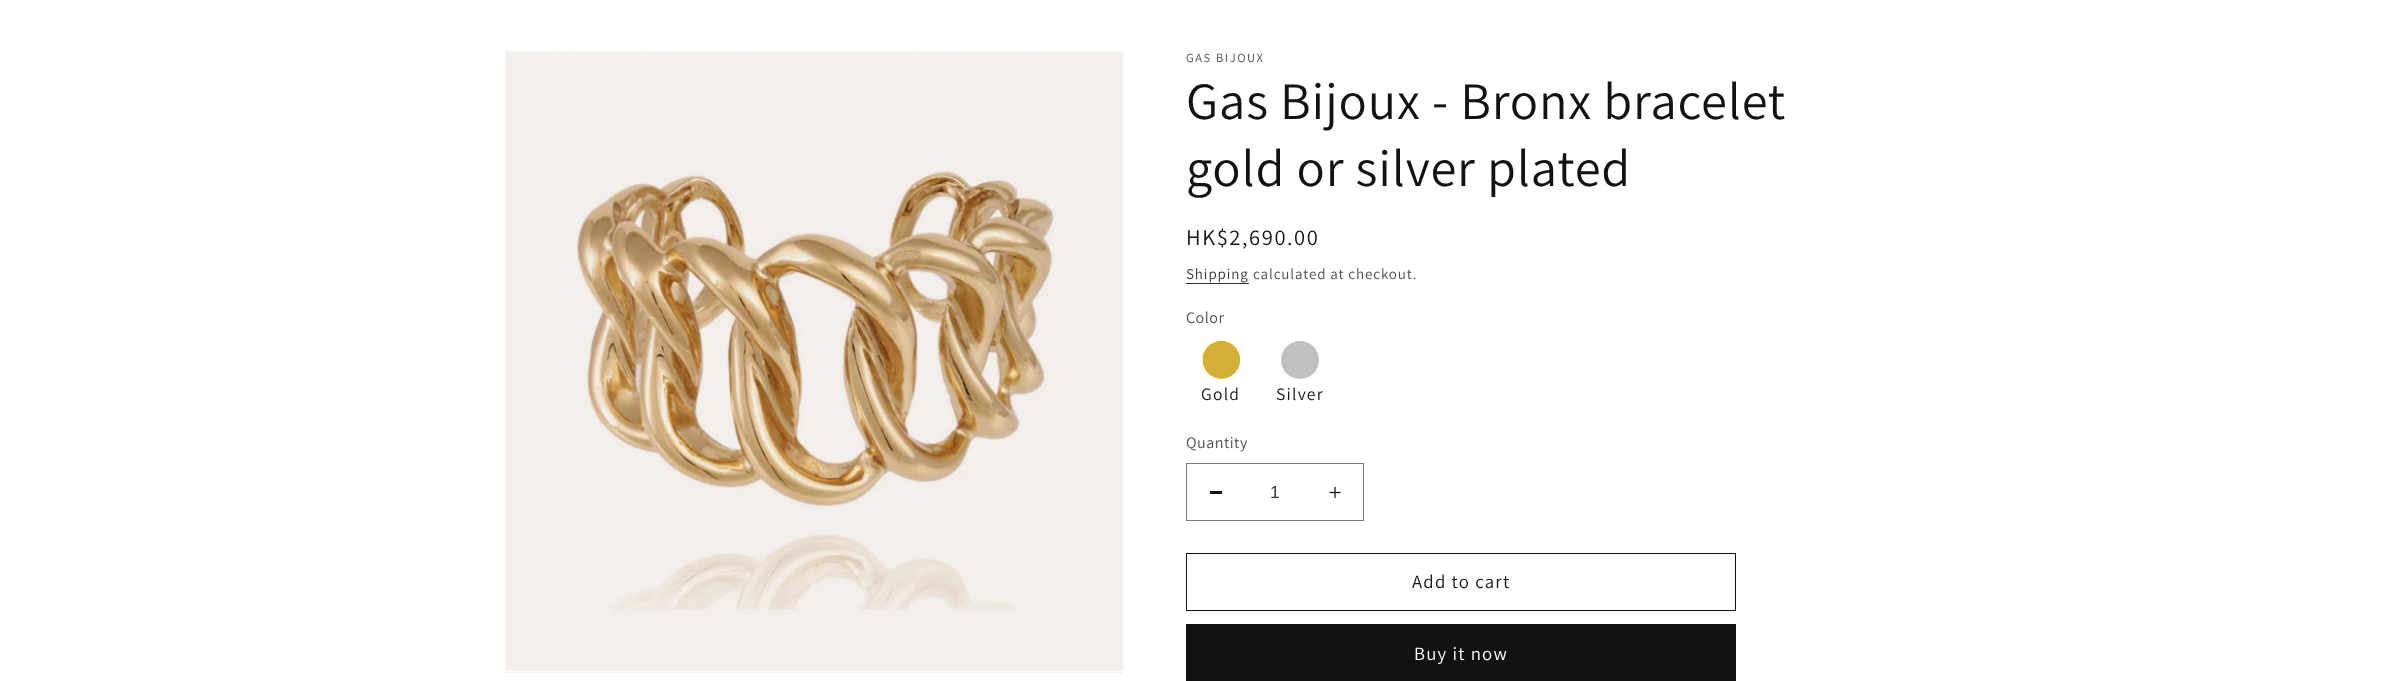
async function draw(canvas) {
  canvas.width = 2384;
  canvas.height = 681;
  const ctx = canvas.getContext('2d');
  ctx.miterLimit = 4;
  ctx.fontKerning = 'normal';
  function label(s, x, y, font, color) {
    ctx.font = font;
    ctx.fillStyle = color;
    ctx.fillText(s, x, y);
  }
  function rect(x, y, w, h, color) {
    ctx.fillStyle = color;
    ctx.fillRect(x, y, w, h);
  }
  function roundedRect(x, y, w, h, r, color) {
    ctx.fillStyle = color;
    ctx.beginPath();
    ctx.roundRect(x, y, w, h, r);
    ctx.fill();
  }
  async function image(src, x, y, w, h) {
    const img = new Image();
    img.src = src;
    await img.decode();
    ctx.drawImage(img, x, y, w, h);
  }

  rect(0, 0, 2384, 681, '#fff');
  ctx.strokeStyle = '#f3f3f3';
  ctx.strokeRect(505.5, 51.5, 618, 621);
  await image('assets/img1.png', 506, 52, 617, 619);
  ctx.letterSpacing = '1.6px';
  label('GAS BIJOUX', 1186, 62, '12.5px Assistant', '#4d4d4d');
  ctx.letterSpacing = '0.8px';
  label('Gas Bijoux - Bronx bracelet', 1186, 119, '52.5px Assistant', '#121212');
  label('gold or silver plated', 1186, 186, '52.5px Assistant', '#121212');
  ctx.letterSpacing = '1.6px';
  label('HK$2,690.00', 1186, 245, '22.5px Assistant', '#121212');
  ctx.letterSpacing = '0.9px';
  label('Shipping', 1186, 279, '15px Assistant', '#363636');
  rect(1186, 283, 63, 1, '#363636');
  label('calculated at checkout.', 1253, 279, '15px Assistant', '#4d4d4d');
  ctx.letterSpacing = '0.5px';
  label('Color', 1186, 323, '16px Assistant', '#4d4d4d');
  roundedRect(1203, 341, 37, 38, 18.5, '#ffd700');
  await image('assets/img2.png', 1202, 341, 38, 38);
  ctx.letterSpacing = '1.25px';
  label('Gold', 1201, 400, '17.5px Assistant', '#121212');
  ctx.fillStyle = '#c0c0c0';
  ctx.beginPath();
  ctx.arc(1300, 360, 19, 0, 2 * Math.PI);
  ctx.fill();
  label('Silver', 1276, 400, '17.5px Assistant', '#121212');
  ctx.letterSpacing = '0.5px';
  label('Quantity', 1186, 448, '16px Assistant', '#4d4d4d');
  rect(1210, 491, 12, 3, '#121212');
  await image('assets/img3.png', 1329, 486, 12, 13);
  ctx.strokeStyle = '#7d7d7d';
  ctx.strokeRect(1186.5, 463.5, 177, 57);
  ctx.letterSpacing = '0px';
  label('1', 1270, 498, '17.5px Liberation Sans', '#363636');
  ctx.strokeStyle = '#121212';
  ctx.strokeRect(1186.5, 553.5, 549, 57);
  ctx.letterSpacing = '1.25px';
  label('Add to cart', 1412, 588, '18.75px Assistant', '#121212');
  rect(1186, 624, 550, 57, '#121212');
  label('Buy it now', 1414, 660, '18.75px Assistant', '#fff');
}

draw(document.querySelector('canvas'));
